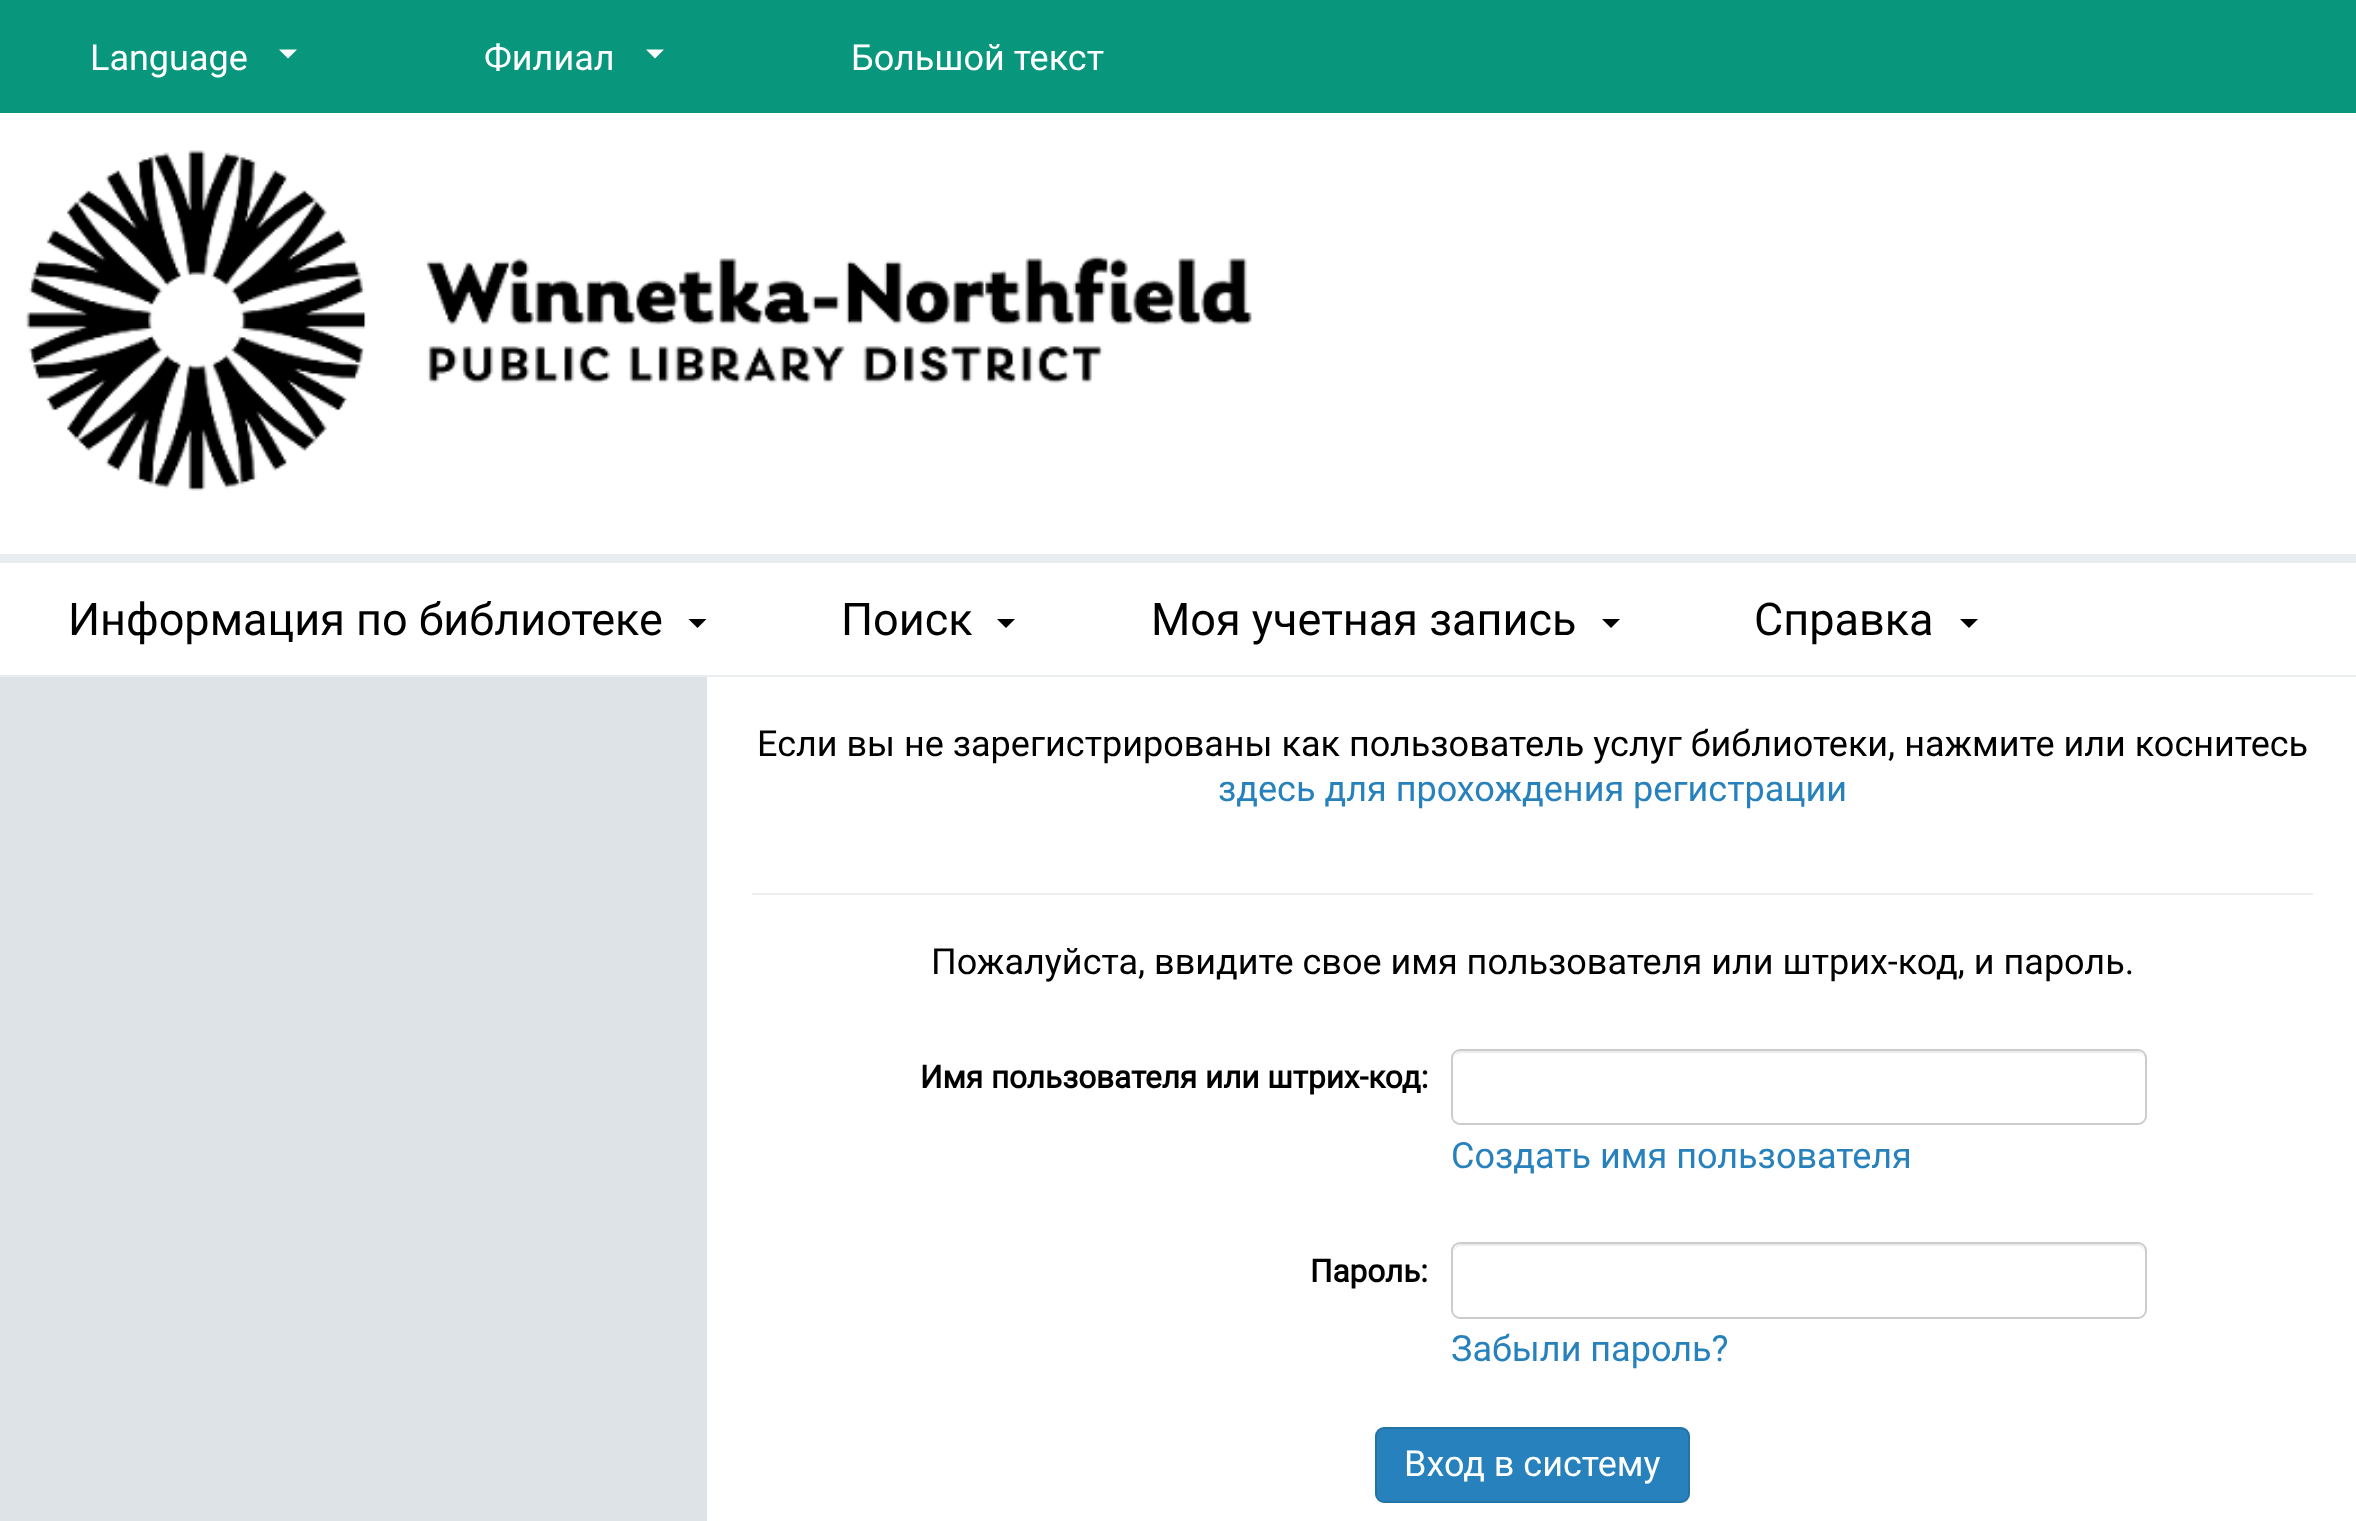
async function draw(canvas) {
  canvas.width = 2356;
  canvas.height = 1521;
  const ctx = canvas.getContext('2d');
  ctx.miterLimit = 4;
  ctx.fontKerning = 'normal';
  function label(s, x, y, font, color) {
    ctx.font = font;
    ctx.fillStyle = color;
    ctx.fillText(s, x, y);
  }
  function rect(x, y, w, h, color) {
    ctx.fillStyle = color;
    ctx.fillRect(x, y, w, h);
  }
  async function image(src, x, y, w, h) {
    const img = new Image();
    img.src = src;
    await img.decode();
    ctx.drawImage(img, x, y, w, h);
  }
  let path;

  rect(0, 0, 2356, 1521, '#08967d');
  rect(0, 675, 2356, 2, '#eaedf0');
  label('Language', 90, 70, '36px Roboto', '#fff');
  path = new Path2D('M279 49.5H297L288 58.5Z');
  ctx.fill(path);
  label('Филиал', 484, 70, '36px Roboto', '#fff');
  path = new Path2D('M646 49.5H664L655 58.5Z');
  ctx.fill(path);
  label('Большой текст', 851, 70, '36px Roboto', '#fff');
  rect(0, 563, 2356, 112, '#fff');
  rect(0, 554, 2356, 9, '#eaedf0');
  label('Информация по библиотеке', 68, 635, '45px Roboto', '#000');
  path = new Path2D('M688.5 619H706.5L697.5 628Z');
  ctx.fill(path);
  label('Поиск', 841, 635, '45px Roboto', '#000');
  path = new Path2D('M997 619H1015L1006 628Z');
  ctx.fill(path);
  label('Моя учетная запись', 1151, 635, '45px Roboto', '#000');
  path = new Path2D('M1602 619H1620L1611 628Z');
  ctx.fill(path);
  label('Справка', 1754, 635, '45px Roboto', '#000');
  path = new Path2D('M1960 619H1978L1969 628Z');
  ctx.fill(path);
  rect(0, 113, 2356, 441, '#fff');
  await image('assets/img1.png', 26, 150, 1226, 341);
  rect(0, 677, 707, 844, '#dee3e8');
  rect(707, 677, 1649, 844, '#fff');
  label('Если вы не зарегистрированы как пользователь услуг библиотеки, нажмите или коснитесь', 757, 756, '36px Roboto', '#000');
  label('здесь для прохождения регистрации', 1218, 801, '36px Roboto', '#2781bc');
  rect(752, 893, 1561, 2, '#eee');
  label('Пожалуйста, ввидите свое имя пользователя или штрих-код, и пароль.', 931, 974, '36px Roboto', '#000');
  label('Имя пользователя или штрих-код:', 920, 1088, 'bold 31.5px Roboto', '#000');
  ctx.fillStyle = '#ececec';
  path = new Path2D('M1460 1053H2138C2141 1053 2144 1056 2144 1060C2144 1056 2142 1051 2137 1051H1461C1456 1051 1454 1056 1454 1060C1454 1056 1457 1053 1460 1053Z');
  ctx.fill(path);
  ctx.beginPath();
  ctx.roundRect(1452, 1050, 694, 74, 8);
  ctx.strokeStyle = '#ccc';
  ctx.lineWidth = 2;
  ctx.stroke();
  label('Создать имя пользователя', 1451, 1168, '36px Roboto', '#2781bc');
  label('Пароль:', 1310, 1282, 'bold 31.5px Roboto', '#000');
  ctx.fillStyle = '#ececec';
  path = new Path2D('M1460 1246H2138C2141 1246 2144 1250 2144 1253C2144 1249 2142 1244 2137 1244H1461C1456 1244 1454 1249 1454 1253C1454 1250 1457 1246 1460 1246Z');
  ctx.fill(path);
  ctx.beginPath();
  ctx.roundRect(1452, 1243, 694, 75, 8);
  ctx.stroke();
  label('Забыли пароль?', 1451, 1361, '36px Roboto', '#2781bc');
  ctx.beginPath();
  ctx.roundRect(1376, 1428, 313, 74, 8);
  ctx.fill();
  ctx.strokeStyle = '#2373a7';
  ctx.stroke();
  label('Вход в систему', 1404, 1476, '36px Roboto', '#fff');
}

draw(document.querySelector('canvas'));
